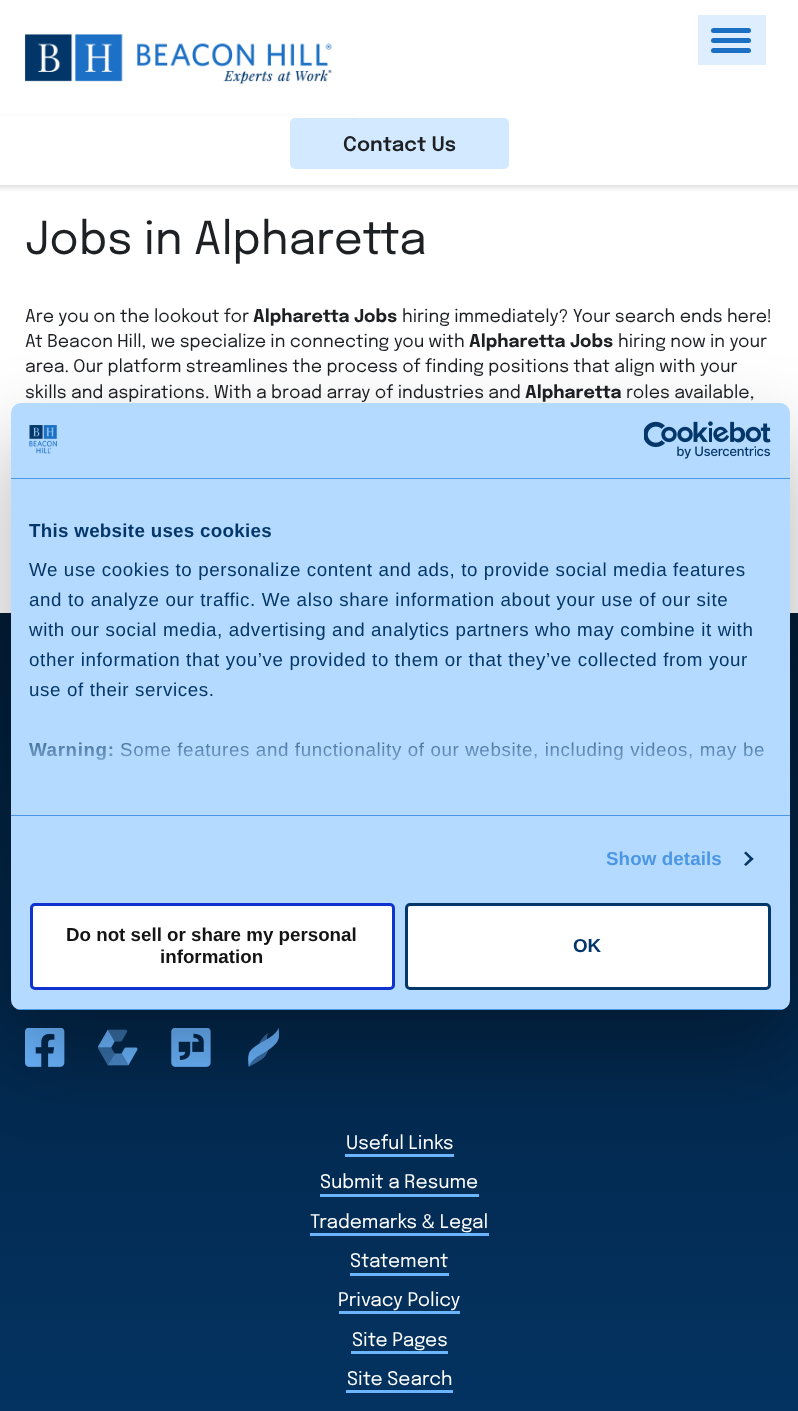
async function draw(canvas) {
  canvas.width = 798;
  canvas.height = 1411;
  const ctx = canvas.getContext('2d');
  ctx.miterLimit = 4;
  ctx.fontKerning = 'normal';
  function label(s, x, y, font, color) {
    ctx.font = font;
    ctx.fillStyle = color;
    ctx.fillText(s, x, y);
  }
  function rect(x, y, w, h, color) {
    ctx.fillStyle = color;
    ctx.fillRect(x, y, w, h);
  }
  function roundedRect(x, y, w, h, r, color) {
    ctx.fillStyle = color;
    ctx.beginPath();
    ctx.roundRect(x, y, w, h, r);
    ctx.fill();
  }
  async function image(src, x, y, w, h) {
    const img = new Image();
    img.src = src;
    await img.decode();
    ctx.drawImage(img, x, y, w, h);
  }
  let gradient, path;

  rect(0, 0, 798, 1411, '#fff');
  ctx.fillStyle = '#e0e0e0';
  ctx.filter = 'blur(2.5px)';
  ctx.beginPath();
  ctx.rect(-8, -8, 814, 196);
  ctx.fill();
  ctx.filter = 'none';
  rect(0, 0, 798, 185, '#fff');
  await image('assets/img1.png', 0, 34, 356, 81);
  rect(698, 15, 68, 50, '#deeeff');
  roundedRect(711, 28, 40, 5, 2.5, '#1c70c4');
  roundedRect(711, 38, 40, 5, 2.5, '#1c70c4');
  roundedRect(711, 48, 40, 5, 2.5, '#1c70c4');
  roundedRect(290, 118, 219, 51, 5, '#d2e9ff');
  ctx.letterSpacing = '0.1px';
  label('Contact Us', 343, 151, '600 20px Epilogue', '#1e2124');
  ctx.letterSpacing = '0px';
  label('Jobs in Alpharetta', 25, 254, '45px Epilogue', '#1e2124');
  label('Are you on the lookout for', 25, 322, '17.5px Epilogue', '#1e2124');
  label('Alpharetta Jobs', 253, 322, 'bold 17.5px Epilogue', '#1e2124');
  label('hiring immediately? Your search ends here!', 402, 322, '17.5px Epilogue', '#1e2124');
  label('At Beacon Hill, we specialize in connecting you with', 25, 347, '17.5px Epilogue', '#1e2124');
  label('Alpharetta Jobs', 469, 347, 'bold 17.5px Epilogue', '#1e2124');
  label('hiring now in your', 618, 347, '17.5px Epilogue', '#1e2124');
  label('area. Our platform streamlines the process of finding positions that align with your', 25, 372, '17.5px Epilogue', '#1e2124');
  label('skills and aspirations. With a broad array of industries and', 25, 398, '17.5px Epilogue', '#1e2124');
  label('Alpharetta', 525, 398, 'bold 17.5px Epilogue', '#1e2124');
  label('roles available,', 626, 398, '17.5px Epilogue', '#1e2124');
  gradient = ctx.createLinearGradient(399, 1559, 399, 613);
  gradient.addColorStop(0, '#043769');
  gradient.addColorStop(1, '#021c36');
  ctx.fillStyle = gradient;
  ctx.fillRect(0, 613, 798, 798);
  await image('assets/img2.png', 25, 1028, 40, 39);
  await image('assets/img3.png', 98, 1029, 40, 37);
  await image('assets/img4.png', 171, 1028, 40, 39);
  await image('assets/img5.png', 248, 1028, 31, 39);
  label('Useful Links', 346, 1149, '18.75px Epilogue', '#fff');
  rect(345, 1154, 109, 3, '#6bb5ff');
  label('Submit a Resume', 320, 1188, '18.75px Epilogue', '#fff');
  rect(320, 1194, 159, 3, '#6bb5ff');
  label('Trademarks & Legal', 310, 1228, '18.75px Epilogue', '#fff');
  rect(310, 1233, 179, 3, '#6bb5ff');
  label('Statement', 350, 1267, '18.75px Epilogue', '#fff');
  rect(350, 1273, 99, 3, '#6bb5ff');
  label('Privacy Policy', 338, 1306, '18.75px Epilogue', '#fff');
  rect(339, 1311, 121, 3, '#6bb5ff');
  label('Site Pages', 352, 1346, '18.75px Epilogue', '#fff');
  rect(351, 1351, 97, 3, '#6bb5ff');
  label('Site Search', 347, 1385, '18.75px Epilogue', '#fff');
  rect(346, 1390, 107, 3, '#6bb5ff');
  ctx.fillStyle = '#0000004d';
  ctx.filter = 'blur(42.5px)';
  ctx.beginPath();
  ctx.roundRect(11, 443, 779, 607, 10);
  ctx.fill();
  ctx.filter = 'none';
  roundedRect(11, 403, 779, 607, 10, '#b5daff');
  rect(11, 478, 779, 1, '#4b97e5');
  await image('assets/img6.png', 29, 425, 28, 29);
  await image('assets/img7.png', 644, 421, 127, 38);
  rect(11, 815, 779, 1, '#4b97e5');
  ctx.letterSpacing = '0.3px';
  label('This website uses cookies', 29, 537, 'bold 18.75px Liberation Sans', '#043769');
  ctx.letterSpacing = '0.62px';
  label('We use cookies to personalize content and ads, to provide social media features', 29, 576, '18.75px Liberation Sans', '#043769');
  label('and to analyze our traffic. We also share information about your use of our site', 29, 606, '18.75px Liberation Sans', '#043769');
  label('with our social media, advertising and analytics partners who may combine it with', 29, 636, '18.75px Liberation Sans', '#043769');
  label('other information that you’ve provided to them or that they’ve collected from your', 29, 666, '18.75px Liberation Sans', '#043769');
  label('use of their services.', 29, 696, '18.75px Liberation Sans', '#043769');
  label('Warning:', 29, 756, 'bold 18.75px Liberation Sans', '#043769');
  label('Some features and functionality of our website, including videos, may be', 120, 756, '18.75px Liberation Sans', '#043769');
  gradient = ctx.createLinearGradient(392, 815, 392, 721);
  gradient.addColorStop(0, '#b5daff');
  gradient.addColorStop(0.5, '#b5daffcc');
  gradient.addColorStop(1, '#b5daff00');
  ctx.fillStyle = gradient;
  ctx.fillRect(28, 742, 736, 18);
  ctx.letterSpacing = '0.1px';
  label('Show details', 606, 865, 'bold 18.75px Liberation Sans', '#4b97e5');
  ctx.fillStyle = '#043769';
  path = new Path2D('M746 851.5L753.5 859L751.5 860.5L744 853Z');
  ctx.fill(path);
  path = new Path2D('M751.5 857L753.5 859L746 866L744 864.5Z');
  ctx.fill(path);
  ctx.save();
  ctx.beginPath();
  ctx.roundRect(11, 403, 779, 607, 10);
  ctx.clip();
  rect(11, 1009, 779, 1, '#4b97e5');
  ctx.restore();
  ctx.fillStyle = '#fff';
  ctx.beginPath();
  ctx.roundRect(31.5, 904.5, 362, 84, 3.5);
  ctx.fill();
  ctx.strokeStyle = '#1032cf';
  ctx.lineWidth = 3;
  ctx.stroke();
  ctx.letterSpacing = '0px';
  label('Do not sell or share my personal', 66, 941, 'bold 18.75px Liberation Sans', '#141414');
  label('information', 160, 963, 'bold 18.75px Liberation Sans', '#141414');
  ctx.fillStyle = '#fff';
  ctx.beginPath();
  ctx.roundRect(406.5, 904.5, 363, 84, 3.5);
  ctx.fill();
  ctx.strokeStyle = '#043769';
  ctx.stroke();
  label('OK', 573, 952, 'bold 18.75px Liberation Sans', '#043769');
}

draw(document.querySelector('canvas'));
